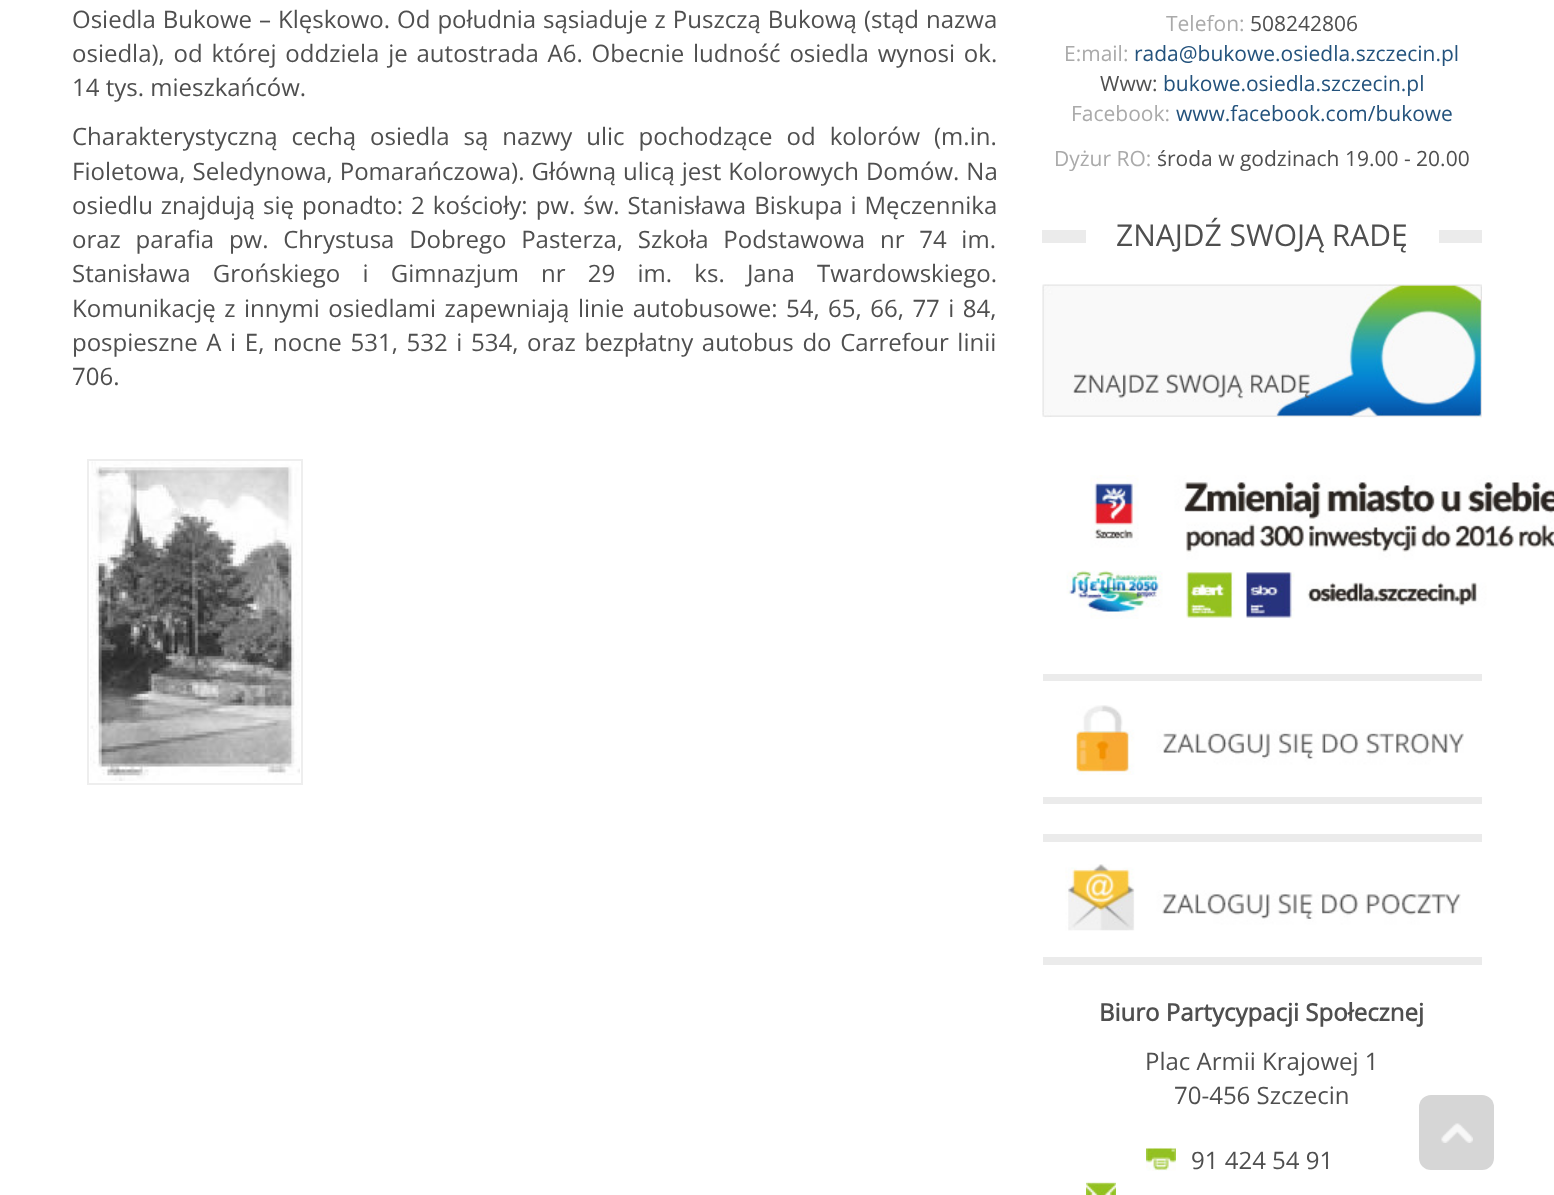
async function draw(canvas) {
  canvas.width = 1554;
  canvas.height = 1195;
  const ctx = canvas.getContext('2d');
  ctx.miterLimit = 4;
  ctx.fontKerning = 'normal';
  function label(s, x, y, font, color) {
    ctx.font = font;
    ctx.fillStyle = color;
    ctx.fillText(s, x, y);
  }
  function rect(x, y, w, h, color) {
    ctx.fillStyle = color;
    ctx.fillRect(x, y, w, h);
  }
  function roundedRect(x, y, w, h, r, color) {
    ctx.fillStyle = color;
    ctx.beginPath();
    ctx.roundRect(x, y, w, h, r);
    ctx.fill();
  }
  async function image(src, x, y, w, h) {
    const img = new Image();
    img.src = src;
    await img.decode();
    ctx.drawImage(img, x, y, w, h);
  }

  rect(0, 0, 1554, 1195, '#fff');
  ctx.wordSpacing = '0.75px';
  label('Osiedla Bukowe – Klęskowo. Od południa sąsiaduje z Puszczą Bukową (stąd nazwa', 72, 28, '24px Open Sans', '#4f4f4f');
  ctx.wordSpacing = '2.6px';
  label('osiedla), od której oddziela je autostrada A6. Obecnie ludność osiedla wynosi ok.', 72, 62, '24px Open Sans', '#4f4f4f');
  ctx.wordSpacing = '0px';
  label('14 tys. mieszkańców.', 72, 96, '24px Open Sans', '#4f4f4f');
  ctx.wordSpacing = '7.75px';
  label('Charakterystyczną cechą osiedla są nazwy ulic pochodzące od kolorów (m.in.', 72, 145, '24px Open Sans', '#4f4f4f');
  ctx.wordSpacing = '0.75px';
  label('Fioletowa, Seledynowa, Pomarańczowa). Główną ulicą jest Kolorowych Domów. Na', 72, 180, '24px Open Sans', '#4f4f4f');
  ctx.wordSpacing = '1.75px';
  label('osiedlu znajdują się ponadto: 2 kościoły: pw. św. Stanisława Biskupa i Męczennika', 72, 214, '24px Open Sans', '#4f4f4f');
  ctx.wordSpacing = '8.5px';
  label('oraz parafia pw. Chrystusa Dobrego Pasterza, Szkoła Podstawowa nr 74 im.', 72, 248, '24px Open Sans', '#4f4f4f');
  ctx.wordSpacing = '16px';
  label('Stanisława Grońskiego i Gimnazjum nr 29 im. ks. Jana Twardowskiego.', 72, 282, '24px Open Sans', '#4f4f4f');
  ctx.wordSpacing = '2.25px';
  label('Komunikację z innymi osiedlami zapewniają linie autobusowe: 54, 65, 66, 77 i 84,', 72, 317, '24px Open Sans', '#4f4f4f');
  ctx.wordSpacing = '2.4px';
  label('pospieszne A i E, nocne 531, 532 i 534, oraz bezpłatny autobus do Carrefour linii', 72, 351, '24px Open Sans', '#4f4f4f');
  ctx.wordSpacing = '0px';
  label('706.', 72, 385, '24px Open Sans', '#4f4f4f');
  ctx.strokeStyle = '#eee';
  ctx.lineWidth = 2;
  ctx.strokeRect(88, 460, 214, 324);
  await image('assets/img1.png', 90, 461, 210, 320);
  label('Telefon:', 1166, 31, '21px Open Sans', '#aaa');
  label('508242806', 1250, 31, '21px Open Sans', '#4f4f4f');
  label('E:mail:', 1064, 61, '21px Open Sans', '#aaa');
  label('rada@bukowe.osiedla.szczecin.pl', 1134, 61, '21px Open Sans', '#23527c');
  label('Www:', 1100, 91, '21px Open Sans', '#4f4f4f');
  label('bukowe.osiedla.szczecin.pl', 1163, 91, '21px Open Sans', '#23527c');
  label('Facebook:', 1071, 121, '21px Open Sans', '#aaa');
  label('www.facebook.com/bukowe', 1176, 121, '21px Open Sans', '#23527c');
  label('Dyżur RO:', 1054, 166, '21px Open Sans', '#aaa');
  label('środa w godzinach 19.00 - 20.00', 1157, 166, '21px Open Sans', '#4f4f4f');
  rect(1042, 230, 440, 13, '#ebebeb');
  rect(1086, 230, 353, 13, '#fff');
  label('ZNAJDŹ SWOJĄ RADĘ', 1116, 246, '30px Open Sans', '#4f4f4f');
  await image('assets/img2.png', 1042, 284, 440, 134);
  await image('assets/img3.png', 1066, 475, 488, 144);
  rect(1043, 674, 439, 7, '#ebebeb');
  rect(1043, 797, 439, 7, '#ebebeb');
  await image('assets/img4.png', 1076, 705, 388, 70);
  rect(1043, 834, 439, 8, '#ebebeb');
  rect(1043, 957, 439, 8, '#ebebeb');
  await image('assets/img5.png', 1065, 864, 396, 67);
  label('Biuro Partycypacji Społecznej', 1099, 1021, 'bold 24px Open Sans', '#4f4f4f');
  label('Plac Armii Krajowej 1', 1145, 1070, '24px Open Sans', '#4f4f4f');
  label('70-456 Szczecin', 1174, 1104, '24px Open Sans', '#4f4f4f');
  await image('assets/img6.png', 1146, 1147, 30, 24);
  label('91 424 54 91', 1191, 1169, '24px Open Sans', '#4f4f4f');
  await image('assets/img7.png', 1086, 1181, 30, 14);
  roundedRect(1419, 1095, 75, 75, 12, '#d6d6d6');
  await image('assets/img8.png', 1441, 1123, 32, 20);
}

draw(document.querySelector('canvas'));
